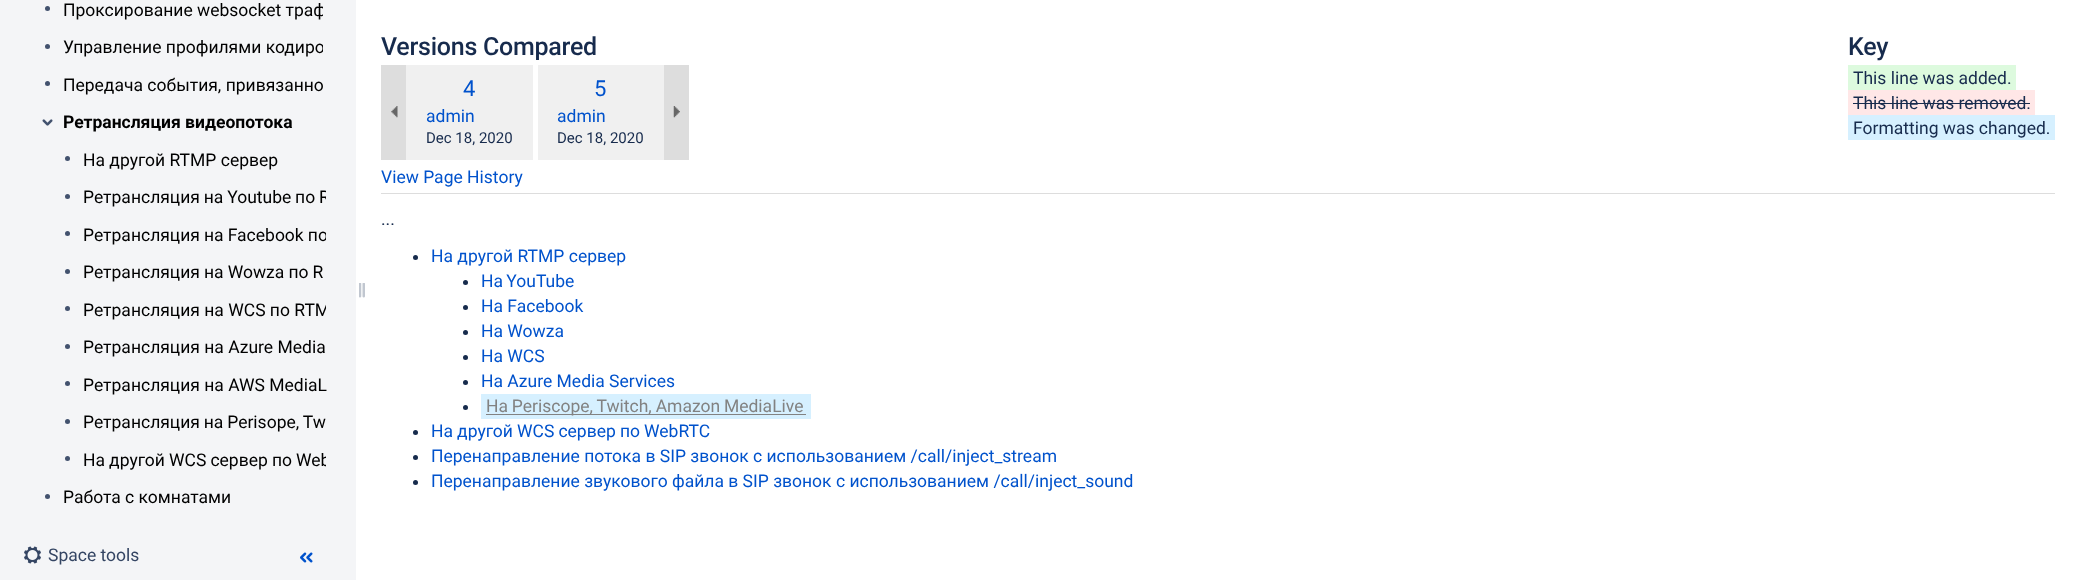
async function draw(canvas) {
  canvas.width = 2079;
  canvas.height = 580;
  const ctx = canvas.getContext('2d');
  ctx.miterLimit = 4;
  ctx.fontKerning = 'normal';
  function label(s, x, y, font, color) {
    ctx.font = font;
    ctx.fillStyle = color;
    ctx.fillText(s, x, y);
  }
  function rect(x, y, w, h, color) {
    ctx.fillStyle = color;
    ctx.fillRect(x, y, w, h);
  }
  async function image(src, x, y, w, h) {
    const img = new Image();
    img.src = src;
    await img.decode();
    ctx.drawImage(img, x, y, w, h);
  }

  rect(0, 0, 2079, 580, '#f4f5f7');
  ctx.fillStyle = '#42526e';
  ctx.beginPath();
  ctx.arc(47.5, 8.5, 2.5, 0, 2 * Math.PI);
  ctx.fill();
  ctx.save();
  ctx.beginPath();
  ctx.rect(63, 0, 260, 23);
  ctx.clip();
  label('Проксирование websocket траф', 63, 16, '17.5px Roboto', '#000');
  ctx.restore();
  ctx.beginPath();
  ctx.arc(47.5, 46.5, 2.5, 0, 2 * Math.PI);
  ctx.fill();
  ctx.save();
  ctx.beginPath();
  ctx.rect(63, 35, 260, 25);
  ctx.clip();
  label('Управление профилями кодиро', 63, 53, '17.5px Roboto', '#000');
  ctx.restore();
  ctx.beginPath();
  ctx.arc(47.5, 83.5, 2.5, 0, 2 * Math.PI);
  ctx.fill();
  label('Передача события, привязанно', 63, 91, '17.5px Roboto', '#000');
  await image('assets/img1.png', 42, 119, 11, 7);
  label('Ретрансляция видеопотока', 63, 128, 'bold 17.5px Roboto', '#000');
  ctx.fillStyle = '#42526e';
  ctx.beginPath();
  ctx.arc(67.5, 158.5, 2.5, 0, 2 * Math.PI);
  ctx.fill();
  label('На другой RTMP сервер', 83, 166, '17.5px Roboto', '#000');
  ctx.fillStyle = '#42526e';
  ctx.beginPath();
  ctx.arc(67.5, 196.5, 2.5, 0, 2 * Math.PI);
  ctx.fill();
  ctx.save();
  ctx.beginPath();
  ctx.rect(83, 185, 243, 25);
  ctx.clip();
  ctx.wordSpacing = '-0.5px';
  label('Ретрансляция на Youtube по R', 83, 203, '17.5px Roboto', '#000');
  ctx.restore();
  ctx.beginPath();
  ctx.arc(67.5, 233.5, 2.5, 0, 2 * Math.PI);
  ctx.fill();
  ctx.save();
  ctx.beginPath();
  ctx.rect(83, 223, 243, 25);
  ctx.clip();
  ctx.wordSpacing = '-0.25px';
  label('Ретрансляция на Facebook по', 83, 241, '17.5px Roboto', '#000');
  ctx.restore();
  ctx.beginPath();
  ctx.arc(67.5, 271.5, 2.5, 0, 2 * Math.PI);
  ctx.fill();
  ctx.wordSpacing = '-0.25px';
  label('Ретрансляция на Wowza по R', 83, 278, '17.5px Roboto', '#000');
  ctx.fillStyle = '#42526e';
  ctx.beginPath();
  ctx.arc(67.5, 308.5, 2.5, 0, 2 * Math.PI);
  ctx.fill();
  ctx.save();
  ctx.beginPath();
  ctx.rect(83, 298, 243, 25);
  ctx.clip();
  ctx.wordSpacing = '0px';
  label('Ретрансляция на WCS по RTM', 83, 316, '17.5px Roboto', '#000');
  ctx.restore();
  ctx.beginPath();
  ctx.arc(67.5, 346.5, 2.5, 0, 2 * Math.PI);
  ctx.fill();
  ctx.wordSpacing = '0px';
  label('Ретрансляция на Azure Media', 83, 353, '17.5px Roboto', '#000');
  ctx.fillStyle = '#42526e';
  ctx.beginPath();
  ctx.arc(67.5, 383.5, 2.5, 0, 2 * Math.PI);
  ctx.fill();
  label('Ретрансляция на AWS MediaL', 83, 391, '17.5px Roboto', '#000');
  ctx.fillStyle = '#42526e';
  ctx.beginPath();
  ctx.arc(67.5, 421.5, 2.5, 0, 2 * Math.PI);
  ctx.fill();
  ctx.wordSpacing = '-0.5px';
  label('Ретрансляция на Perisope, Tw', 83, 428, '17.5px Roboto', '#000');
  ctx.fillStyle = '#42526e';
  ctx.beginPath();
  ctx.arc(67.5, 458.5, 2.5, 0, 2 * Math.PI);
  ctx.fill();
  ctx.save();
  ctx.beginPath();
  ctx.rect(83, 448, 243, 25);
  ctx.clip();
  ctx.wordSpacing = '-0.25px';
  label('На другой WCS сервер по Web', 83, 466, '17.5px Roboto', '#000');
  ctx.restore();
  ctx.beginPath();
  ctx.arc(47.5, 496.5, 2.5, 0, 2 * Math.PI);
  ctx.fill();
  ctx.wordSpacing = '0px';
  label('Работа с комнатами', 63, 503, '17.5px Roboto', '#000');
  rect(356, 0, 1723, 580, '#fff');
  await image('assets/img2.png', 359, 283, 6, 15);
  await image('assets/img3.png', 24, 546, 17, 18);
  label('Space tools', 48, 561, '17.5px Roboto', '#344563');
  await image('assets/img4.png', 300, 552, 13, 11);
  rect(381, 193, 1674, 1, '#ddd');
  ctx.letterSpacing = '-0.25px';
  label('Versions Compared', 381, 55, '500 25px Roboto', '#172b4d');
  label('Key', 1848, 55, '500 25px Roboto', '#172b4d');
  rect(1848, 65, 168, 25, '#ddfade');
  ctx.letterSpacing = '0px';
  label('This line was added.', 1853, 84, '17.5px Roboto', '#172b4d');
  rect(1848, 90, 187, 25, '#ffe7e7');
  label('This line was removed.', 1853, 109, '17.5px Roboto', '#172b4d');
  rect(1853, 103, 177, 1, '#172b4d');
  rect(1848, 115, 207, 25, '#d6f0ff');
  label('Formatting was changed.', 1853, 134, '17.5px Roboto', '#172b4d');
  rect(406, 65, 127, 95, '#f0f0f0');
  label('4', 463, 96, '22px Roboto', '#0052cc');
  label('admin', 426, 122, '17.5px Roboto', '#0052cc');
  label('Dec 18, 2020', 426, 143, '15px Roboto', '#172b4d');
  rect(538, 65, 126, 95, '#f0f0f0');
  label('5', 594, 96, '22px Roboto', '#0052cc');
  label('admin', 557, 122, '17.5px Roboto', '#0052cc');
  label('Dec 18, 2020', 557, 143, '15px Roboto', '#172b4d');
  rect(381, 65, 25, 95, '#ddd');
  await image('assets/img5.png', 391, 106, 7, 12);
  rect(664, 65, 25, 95, '#ddd');
  await image('assets/img6.png', 673, 106, 7, 12);
  label('View Page History', 381, 183, '17.5px Roboto', '#0052cc');
  label('...', 381, 225, '17.5px Roboto', '#172b4d');
  ctx.beginPath();
  ctx.arc(415.5, 257.5, 2.5, 0, 2 * Math.PI);
  ctx.fill();
  label('На другой RTMP сервер', 431, 262, '17.5px Roboto', '#0052cc');
  ctx.fillStyle = '#172b4d';
  ctx.beginPath();
  ctx.arc(465.5, 282.5, 2.5, 0, 2 * Math.PI);
  ctx.fill();
  ctx.wordSpacing = '-1px';
  label('На YouTube', 481, 287, '17.5px Roboto', '#0052cc');
  ctx.fillStyle = '#172b4d';
  ctx.beginPath();
  ctx.arc(465.5, 307.5, 2.5, 0, 2 * Math.PI);
  ctx.fill();
  ctx.wordSpacing = '0px';
  label('На Facebook', 481, 312, '17.5px Roboto', '#0052cc');
  ctx.fillStyle = '#172b4d';
  ctx.beginPath();
  ctx.arc(465.5, 332.5, 2.5, 0, 2 * Math.PI);
  ctx.fill();
  label('На Wowza', 481, 337, '17.5px Roboto', '#0052cc');
  ctx.fillStyle = '#172b4d';
  ctx.beginPath();
  ctx.arc(465.5, 357.5, 2.5, 0, 2 * Math.PI);
  ctx.fill();
  label('На WCS', 481, 362, '17.5px Roboto', '#0052cc');
  ctx.fillStyle = '#172b4d';
  ctx.beginPath();
  ctx.arc(465.5, 382.5, 2.5, 0, 2 * Math.PI);
  ctx.fill();
  label('На Azure Media Services', 481, 387, '17.5px Roboto', '#0052cc');
  ctx.fillStyle = '#172b4d';
  ctx.beginPath();
  ctx.arc(465.5, 407.5, 2.5, 0, 2 * Math.PI);
  ctx.fill();
  rect(481, 394, 330, 25, '#d6f0ff');
  rect(486, 414, 320, 1, '#828282');
  ctx.wordSpacing = '-0.5px';
  label('На Periscope, Twitch, Amazon MediaLive', 486, 412, '17.5px Roboto', '#828282');
  ctx.fillStyle = '#172b4d';
  ctx.beginPath();
  ctx.arc(415.5, 432.5, 2.5, 0, 2 * Math.PI);
  ctx.fill();
  ctx.wordSpacing = '-0.25px';
  label('На другой WCS сервер по WebRTC', 431, 437, '17.5px Roboto', '#0052cc');
  ctx.fillStyle = '#172b4d';
  ctx.beginPath();
  ctx.arc(415.5, 457.5, 2.5, 0, 2 * Math.PI);
  ctx.fill();
  ctx.wordSpacing = '0px';
  label('Перенаправление потока в SIP звонок с использованием /call/inject_stream', 431, 462, '17.5px Roboto', '#0052cc');
  ctx.fillStyle = '#172b4d';
  ctx.beginPath();
  ctx.arc(415.5, 482.5, 2.5, 0, 2 * Math.PI);
  ctx.fill();
  label('Перенаправление звукового файла в SIP звонок с использованием /call/inject_sound', 431, 487, '17.5px Roboto', '#0052cc');
}

draw(document.querySelector('canvas'));
